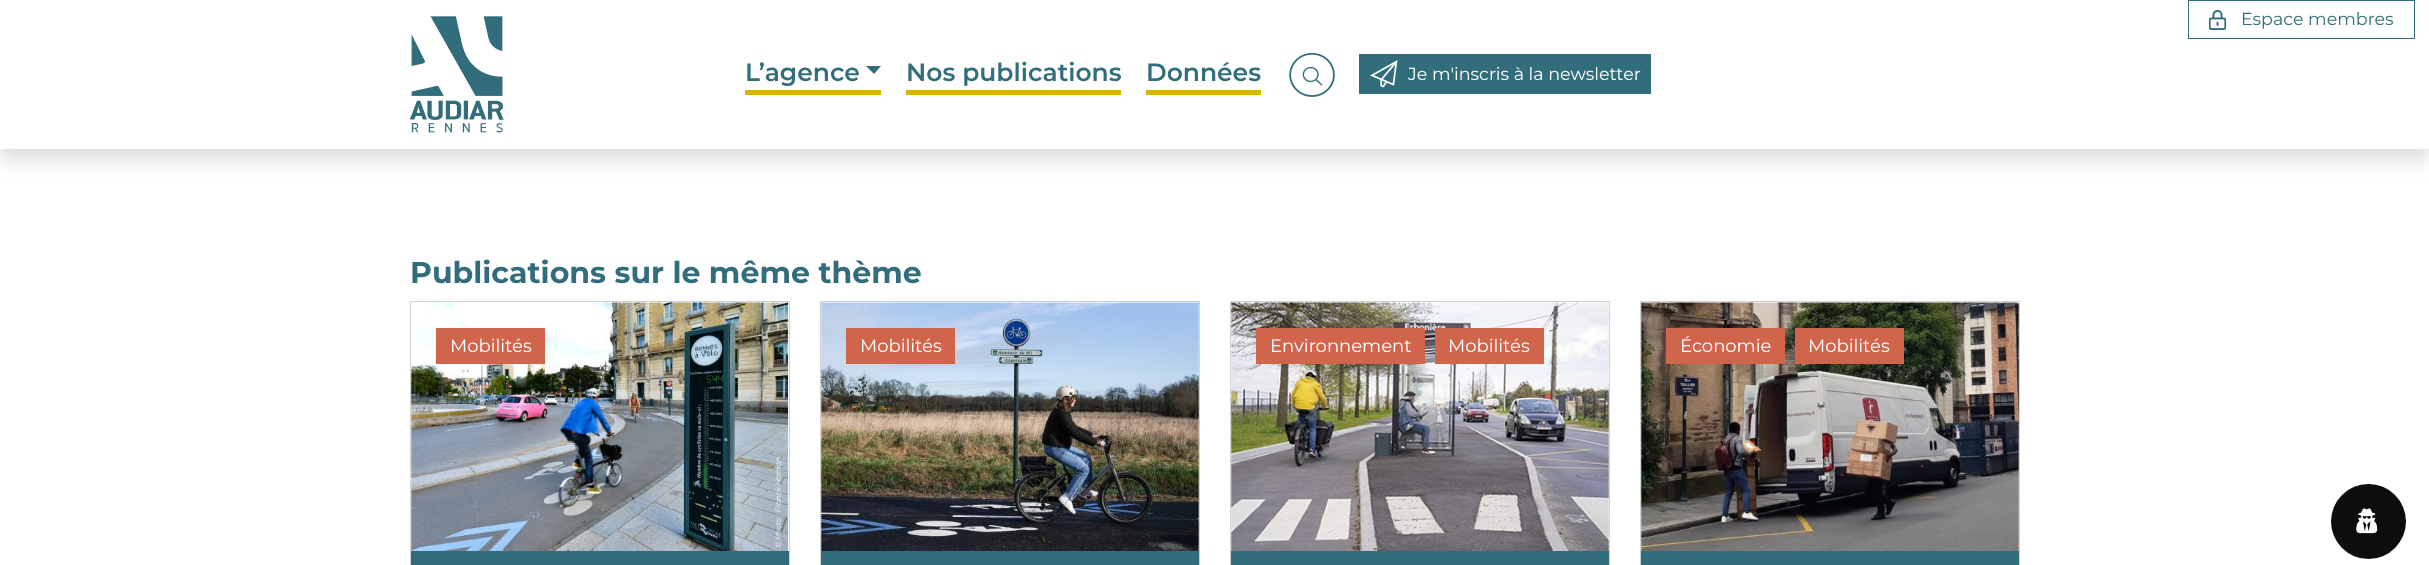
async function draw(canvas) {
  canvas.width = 2429;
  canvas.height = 565;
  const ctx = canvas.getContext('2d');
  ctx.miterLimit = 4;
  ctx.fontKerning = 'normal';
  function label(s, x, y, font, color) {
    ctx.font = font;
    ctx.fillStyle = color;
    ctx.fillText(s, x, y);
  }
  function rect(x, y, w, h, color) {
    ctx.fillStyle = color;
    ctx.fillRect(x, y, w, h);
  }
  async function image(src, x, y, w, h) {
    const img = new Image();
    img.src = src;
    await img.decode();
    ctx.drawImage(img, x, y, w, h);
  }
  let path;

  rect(0, 0, 2429, 565, '#fff');
  ctx.fillStyle = '#00000026';
  ctx.filter = 'blur(10px)';
  ctx.beginPath();
  ctx.rect(0, 10, 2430, 149);
  ctx.fill();
  ctx.filter = 'none';
  rect(0, 0, 2429, 149, '#fff');
  await image('assets/img1.png', 410, 16, 94, 117);
  rect(745, 90, 136, 5, '#dab300');
  label('L’agence', 745, 81, '600 25px Montserrat', '#316d7b');
  path = new Path2D('M866 66H881L874 74Z');
  ctx.fill(path);
  rect(906, 90, 215, 5, '#dab300');
  label('Nos publications', 906, 81, '600 25px Montserrat', '#316d7b');
  rect(1146, 90, 115, 5, '#dab300');
  label('Données', 1146, 81, '600 25px Montserrat', '#316d7b');
  await image('assets/img2.png', 1289, 52, 46, 45);
  rect(1359, 54, 292, 40, '#316d7b');
  await image('assets/img3.png', 1370, 60, 28, 28);
  label('Je m\'inscris à la newsletter', 1408, 80, '17.5px Montserrat', '#fff');
  ctx.strokeStyle = '#316d7b';
  ctx.strokeRect(2188.5, 0.5, 226, 38);
  await image('assets/img4.png', 2209, 10, 17, 20);
  label('Espace membres', 2241, 25, '17.5px Montserrat', '#316d7b');
  label('Publications sur le même thème', 410, 283, 'bold 30px Montserrat', '#316d7b');
  ctx.strokeStyle = '#d2d2d2';
  ctx.strokeRect(410.5, 301.5, 379, 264);
  await image('assets/img5.png', 411, 302, 378, 249);
  rect(436, 328, 109, 36, '#d1654c');
  label('Mobilités', 450, 352, '18px Montserrat', '#fff');
  rect(411, 551, 378, 14, '#316d7b');
  ctx.strokeRect(820.5, 301.5, 379, 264);
  await image('assets/img6.png', 821, 302, 378, 249);
  rect(846, 328, 109, 36, '#d1654c');
  label('Mobilités', 860, 352, '18px Montserrat', '#fff');
  rect(821, 551, 378, 14, '#316d7b');
  ctx.strokeRect(1230.5, 301.5, 379, 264);
  await image('assets/img7.png', 1231, 302, 378, 249);
  rect(1256, 328, 169, 36, '#d1654c');
  label('Environnement', 1270, 352, '18px Montserrat', '#fff');
  rect(1435, 328, 109, 36, '#d1654c');
  label('Mobilités', 1448, 352, '18px Montserrat', '#fff');
  rect(1231, 551, 378, 14, '#316d7b');
  ctx.strokeRect(1640.5, 301.5, 379, 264);
  await image('assets/img8.png', 1641, 302, 378, 249);
  rect(1666, 328, 119, 36, '#d1654c');
  label('Économie', 1680, 352, '18px Montserrat', '#fff');
  rect(1795, 328, 109, 36, '#d1654c');
  label('Mobilités', 1808, 352, '18px Montserrat', '#fff');
  rect(1641, 551, 378, 14, '#316d7b');
  ctx.fillStyle = '#0d0d0d';
  ctx.beginPath();
  ctx.arc(2368.5, 521.5, 37.5, 0, 2 * Math.PI);
  ctx.fill();
  await image('assets/img9.png', 2356, 508, 22, 26);
}

draw(document.querySelector('canvas'));
